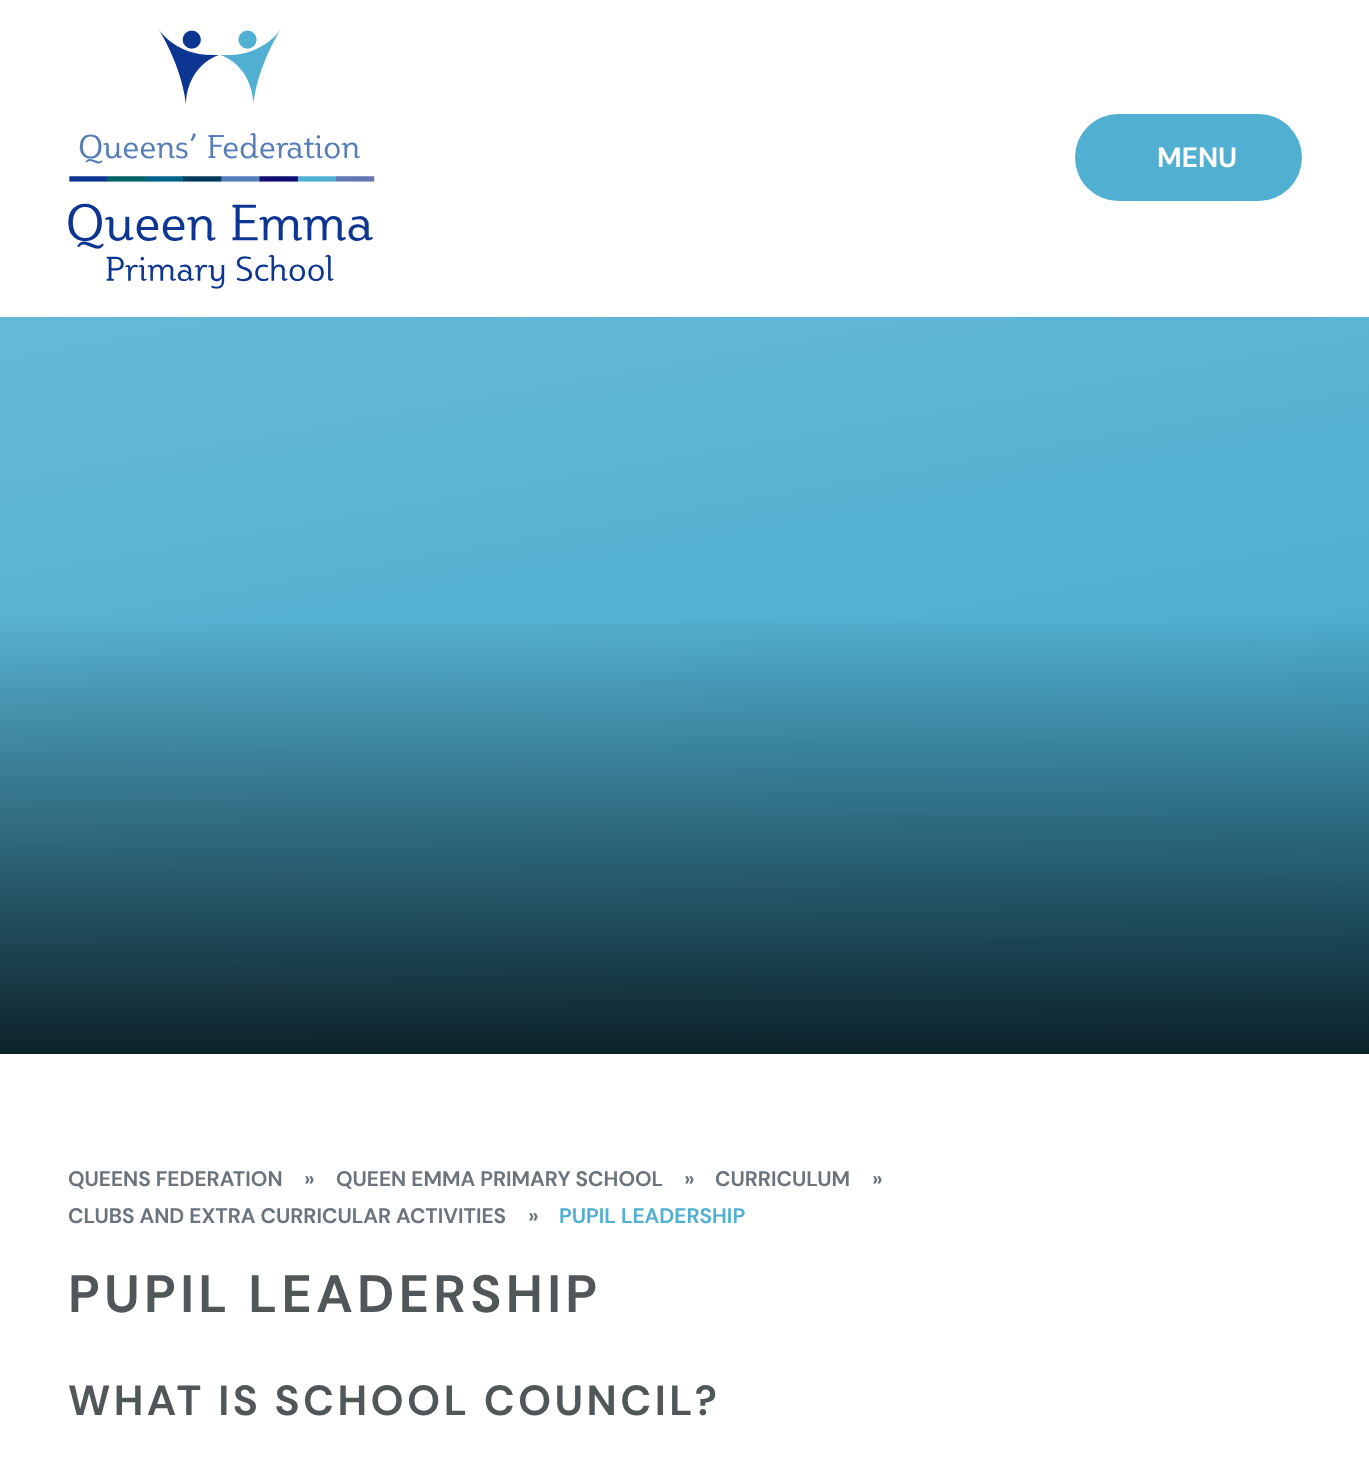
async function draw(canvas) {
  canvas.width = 1369;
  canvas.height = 1473;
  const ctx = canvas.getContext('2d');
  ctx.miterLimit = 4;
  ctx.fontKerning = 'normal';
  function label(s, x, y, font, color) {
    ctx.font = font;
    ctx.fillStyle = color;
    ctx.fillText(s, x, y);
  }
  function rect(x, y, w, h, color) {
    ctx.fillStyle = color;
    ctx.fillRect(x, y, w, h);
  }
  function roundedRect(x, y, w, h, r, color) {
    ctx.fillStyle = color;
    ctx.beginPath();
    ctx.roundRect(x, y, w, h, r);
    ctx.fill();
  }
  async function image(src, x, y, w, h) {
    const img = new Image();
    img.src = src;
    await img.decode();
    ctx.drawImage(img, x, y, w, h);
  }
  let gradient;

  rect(0, 0, 1369, 1473, '#fff');
  await image('assets/img1.png', 68, 28, 307, 261);
  roundedRect(1075, 114, 227, 87, 43.5, '#51b0d1');
  label('MENU', 1157, 167, 'bold 28px DM Sans', '#fff');
  gradient = ctx.createLinearGradient(601, 211, 769, 1160);
  gradient.addColorStop(0, '#65b9d6');
  gradient.addColorStop(1, '#3da7cc');
  ctx.fillStyle = gradient;
  ctx.fillRect(0, 317, 1369, 737);
  gradient = ctx.createLinearGradient(685, 1054, 685, 611);
  gradient.addColorStop(0, '#000000cc');
  gradient.addColorStop(1, '#00000000');
  ctx.fillStyle = gradient;
  ctx.fillRect(0, 623, 1369, 431);
  label('QUEENS FEDERATION', 68, 1186, 'bold 21px DM Sans', '#6a747d');
  label('»', 304, 1186, 'bold 21px DM Sans', '#6a747d');
  label('QUEEN EMMA PRIMARY SCHOOL', 336, 1186, 'bold 21px DM Sans', '#6a747d');
  label('»', 684, 1186, 'bold 21px DM Sans', '#6a747d');
  label('CURRICULUM', 715, 1186, 'bold 21px DM Sans', '#6a747d');
  label('»', 872, 1186, 'bold 21px DM Sans', '#6a747d');
  label('CLUBS AND EXTRA CURRICULAR ACTIVITIES', 68, 1223, 'bold 21px DM Sans', '#6a747d');
  label('»', 528, 1223, 'bold 21px DM Sans', '#6a747d');
  label('PUPIL LEADERSHIP', 559, 1223, 'bold 21px DM Sans', '#51b0d1');
  ctx.letterSpacing = '4.25px';
  label('PUPIL LEADERSHIP', 68, 1312, 'bold 52.5px DM Sans', '#515759');
  ctx.letterSpacing = '3.4px';
  label('WHAT IS SCHOOL COUNCIL?', 68, 1415, 'bold 42px DM Sans', '#515759');
}

draw(document.querySelector('canvas'));
